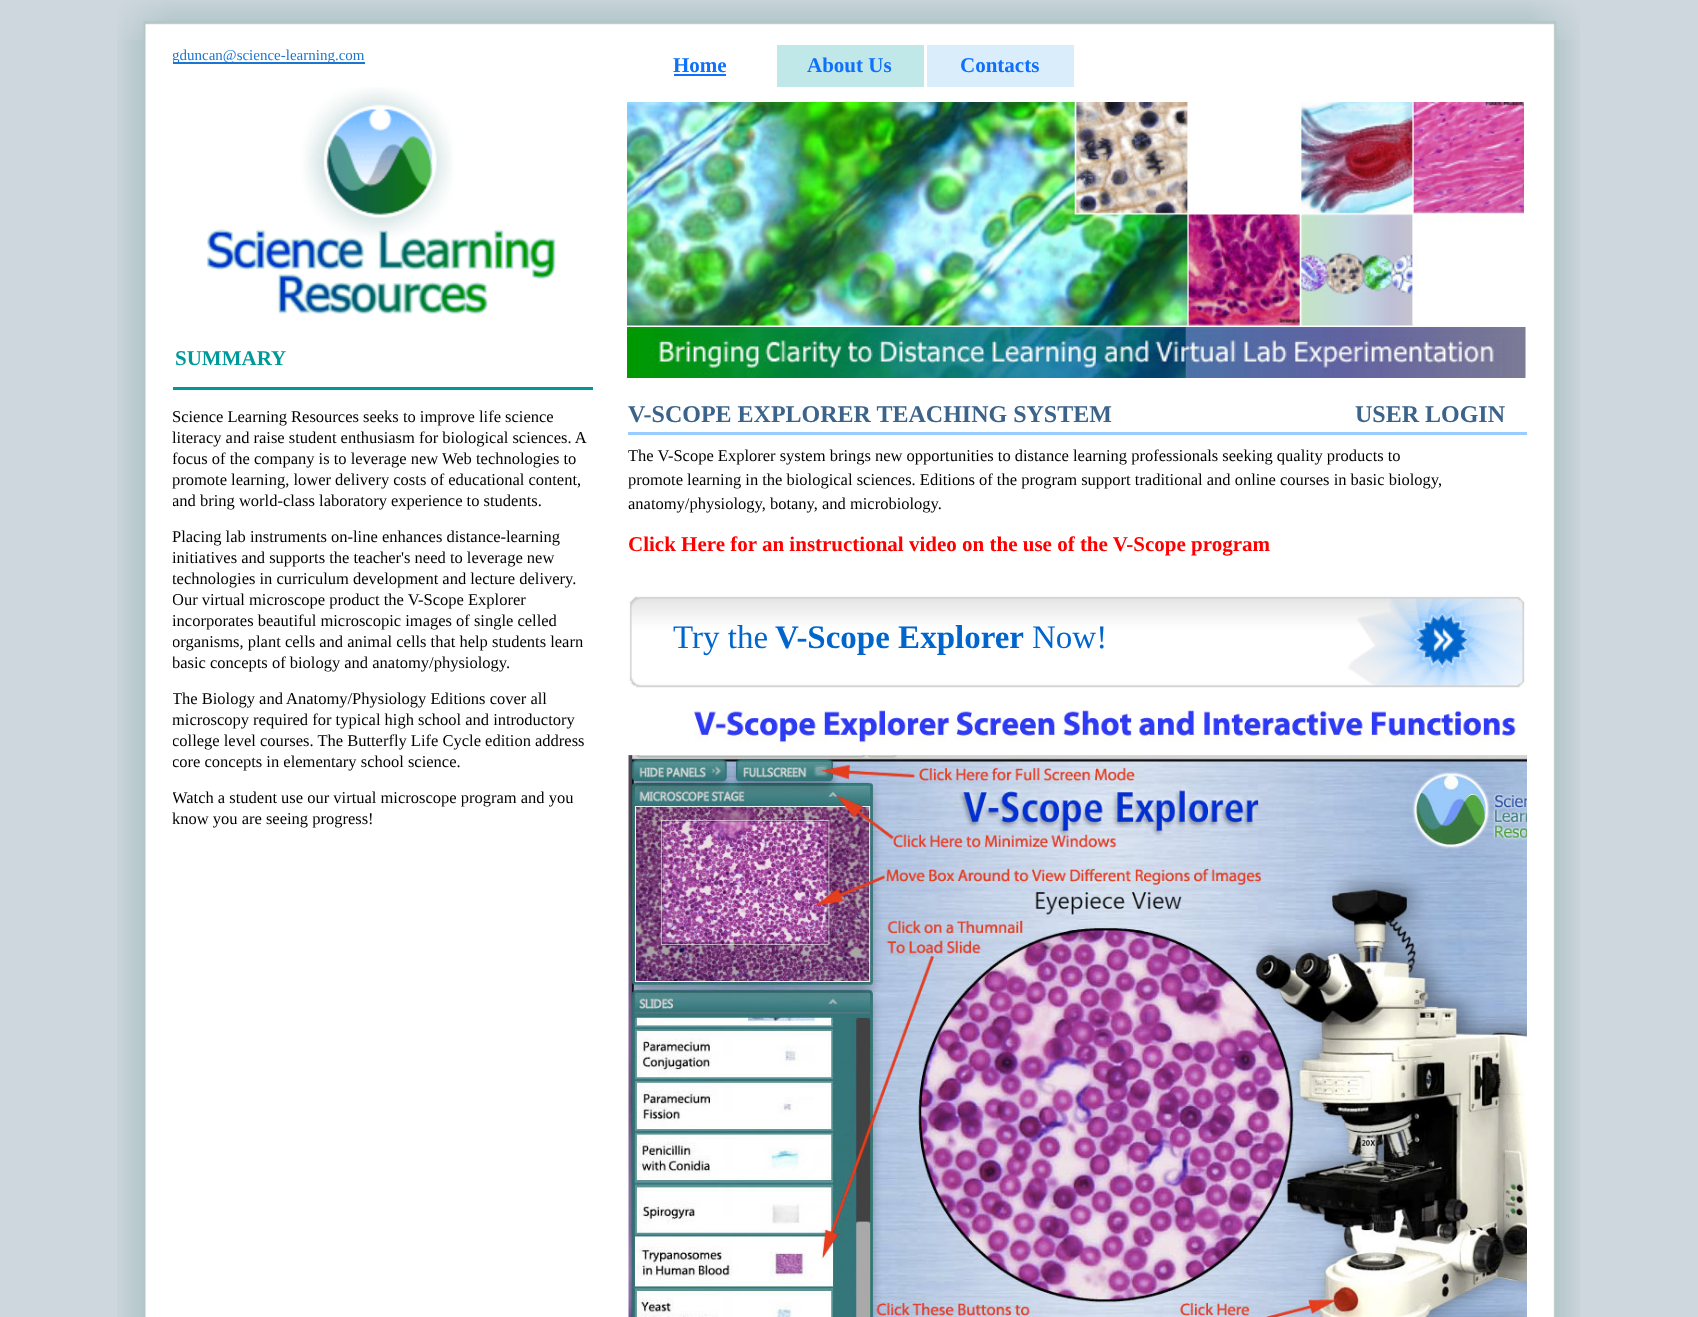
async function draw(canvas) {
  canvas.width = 1698;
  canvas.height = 1317;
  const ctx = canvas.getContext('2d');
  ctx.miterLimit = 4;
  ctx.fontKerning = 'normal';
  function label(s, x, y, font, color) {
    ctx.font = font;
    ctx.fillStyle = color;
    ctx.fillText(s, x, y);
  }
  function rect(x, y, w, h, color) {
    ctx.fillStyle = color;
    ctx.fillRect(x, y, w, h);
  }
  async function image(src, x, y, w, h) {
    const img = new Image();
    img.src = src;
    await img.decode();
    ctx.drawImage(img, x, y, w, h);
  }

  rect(0, 0, 1698, 1317, '#ced7dd');
  await image('assets/img1.png', 117, 40, 1463, 1277);
  await image('assets/img2.png', 117, 0, 1463, 40);
  rect(173, 62, 192, 2, '#1a76d1');
  ctx.save();
  ctx.beginPath();
  ctx.rect(173, 45, 420, 858);
  ctx.clip();
  label('gduncan@science-learning.com', 172, 60, '15px Liberation Serif', '#1a76d1');
  ctx.restore();
  await image('assets/img3.png', 207, 87, 349, 227);
  label('SUMMARY', 175, 365, 'bold 21px Liberation Serif', '#099');
  rect(173, 387, 420, 3, '#099');
  ctx.save();
  ctx.beginPath();
  ctx.rect(173, 45, 420, 858);
  ctx.clip();
  label('Science Learning Resources seeks to improve life science', 172, 422, '16.5px Liberation Serif', '#000');
  ctx.restore();
  label('literacy and raise student enthusiasm for biological sciences. A', 172, 443, '16.5px Liberation Serif', '#000');
  ctx.save();
  ctx.beginPath();
  ctx.rect(173, 45, 420, 858);
  ctx.clip();
  label('focus of the company is to leverage new Web technologies to', 172, 464, '16.5px Liberation Serif', '#000');
  ctx.restore();
  label('promote learning, lower delivery costs of educational content,', 172, 485, '16.5px Liberation Serif', '#000');
  ctx.save();
  ctx.beginPath();
  ctx.rect(173, 45, 420, 858);
  ctx.clip();
  label('and bring world-class laboratory experience to students.', 172, 506, '16.5px Liberation Serif', '#000');
  ctx.restore();
  label('Placing lab instruments on-line enhances distance-learning', 172, 542, '16.5px Liberation Serif', '#000');
  label('initiatives and supports the teacher\'s need to leverage new', 172, 563, '16.5px Liberation Serif', '#000');
  ctx.save();
  ctx.beginPath();
  ctx.rect(173, 45, 420, 858);
  ctx.clip();
  label('technologies in curriculum development and lecture delivery.', 172, 584, '16.5px Liberation Serif', '#000');
  label('Our virtual microscope product the V-Scope Explorer', 172, 605, '16.5px Liberation Serif', '#000');
  ctx.restore();
  label('incorporates beautiful microscopic images of single celled', 172, 626, '16.5px Liberation Serif', '#000');
  ctx.save();
  ctx.beginPath();
  ctx.rect(173, 45, 420, 858);
  ctx.clip();
  label('organisms, plant cells and animal cells that help students learn', 172, 647, '16.5px Liberation Serif', '#000');
  label('basic concepts of biology and anatomy/physiology.', 172, 668, '16.5px Liberation Serif', '#000');
  label('The Biology and Anatomy/Physiology Editions cover all', 172, 704, '16.5px Liberation Serif', '#000');
  ctx.restore();
  label('microscopy required for typical high school and introductory', 172, 725, '16.5px Liberation Serif', '#000');
  ctx.save();
  ctx.beginPath();
  ctx.rect(173, 45, 420, 858);
  ctx.clip();
  label('college level courses. The Butterfly Life Cycle edition address', 172, 746, '16.5px Liberation Serif', '#000');
  label('core concepts in elementary school science.', 172, 767, '16.5px Liberation Serif', '#000');
  label('Watch a student use our virtual microscope program and you', 172, 803, '16.5px Liberation Serif', '#000');
  ctx.restore();
  label('know you are seeing progress!', 172, 824, '16.5px Liberation Serif', '#000');
  label('Home', 673, 72, 'bold 21px Liberation Serif', '#0f70fb');
  rect(674, 74, 52, 2, '#0f70fb');
  rect(777, 45, 147, 42, '#c0e8e9');
  label('About Us', 807, 72, 'bold 21px Liberation Serif', '#0f70fb');
  rect(927, 45, 147, 42, '#daedfb');
  label('Contacts', 960, 72, 'bold 21px Liberation Serif', '#0f70fb');
  await image('assets/img4.png', 627, 102, 897, 224);
  await image('assets/img5.png', 627, 327, 899, 51);
  rect(628, 432, 899, 3, '#99cdff');
  label('V-SCOPE EXPLORER TEACHING SYSTEM', 628, 422, 'bold 24px Liberation Serif', '#3c638a');
  label('USER LOGIN', 1355, 422, 'bold 24px Liberation Serif', '#3c638a');
  label('The V-Scope Explorer system brings new opportunities to distance learning professionals seeking quality products to', 628, 461, '16.5px Liberation Serif', '#000');
  label('promote learning in the biological sciences. Editions of the program support traditional and online courses in basic biology,', 628, 485, '16.5px Liberation Serif', '#000');
  label('anatomy/physiology, botany, and microbiology.', 628, 509, '16.5px Liberation Serif', '#000');
  label('Click Here for an instructional video on the use of the V-Scope program', 628, 551, 'bold 21px Liberation Serif', '#f00');
  await image('assets/img6.png', 629, 596, 896, 92);
  label('Try the', 673, 648, '33px Liberation Serif', '#06c');
  label('V-Scope Explorer', 775, 648, 'bold 33px Liberation Serif', '#06c');
  label('Now!', 1032, 648, '33px Liberation Serif', '#06c');
  await image('assets/img7.png', 628, 710, 899, 607);
}

draw(document.querySelector('canvas'));
